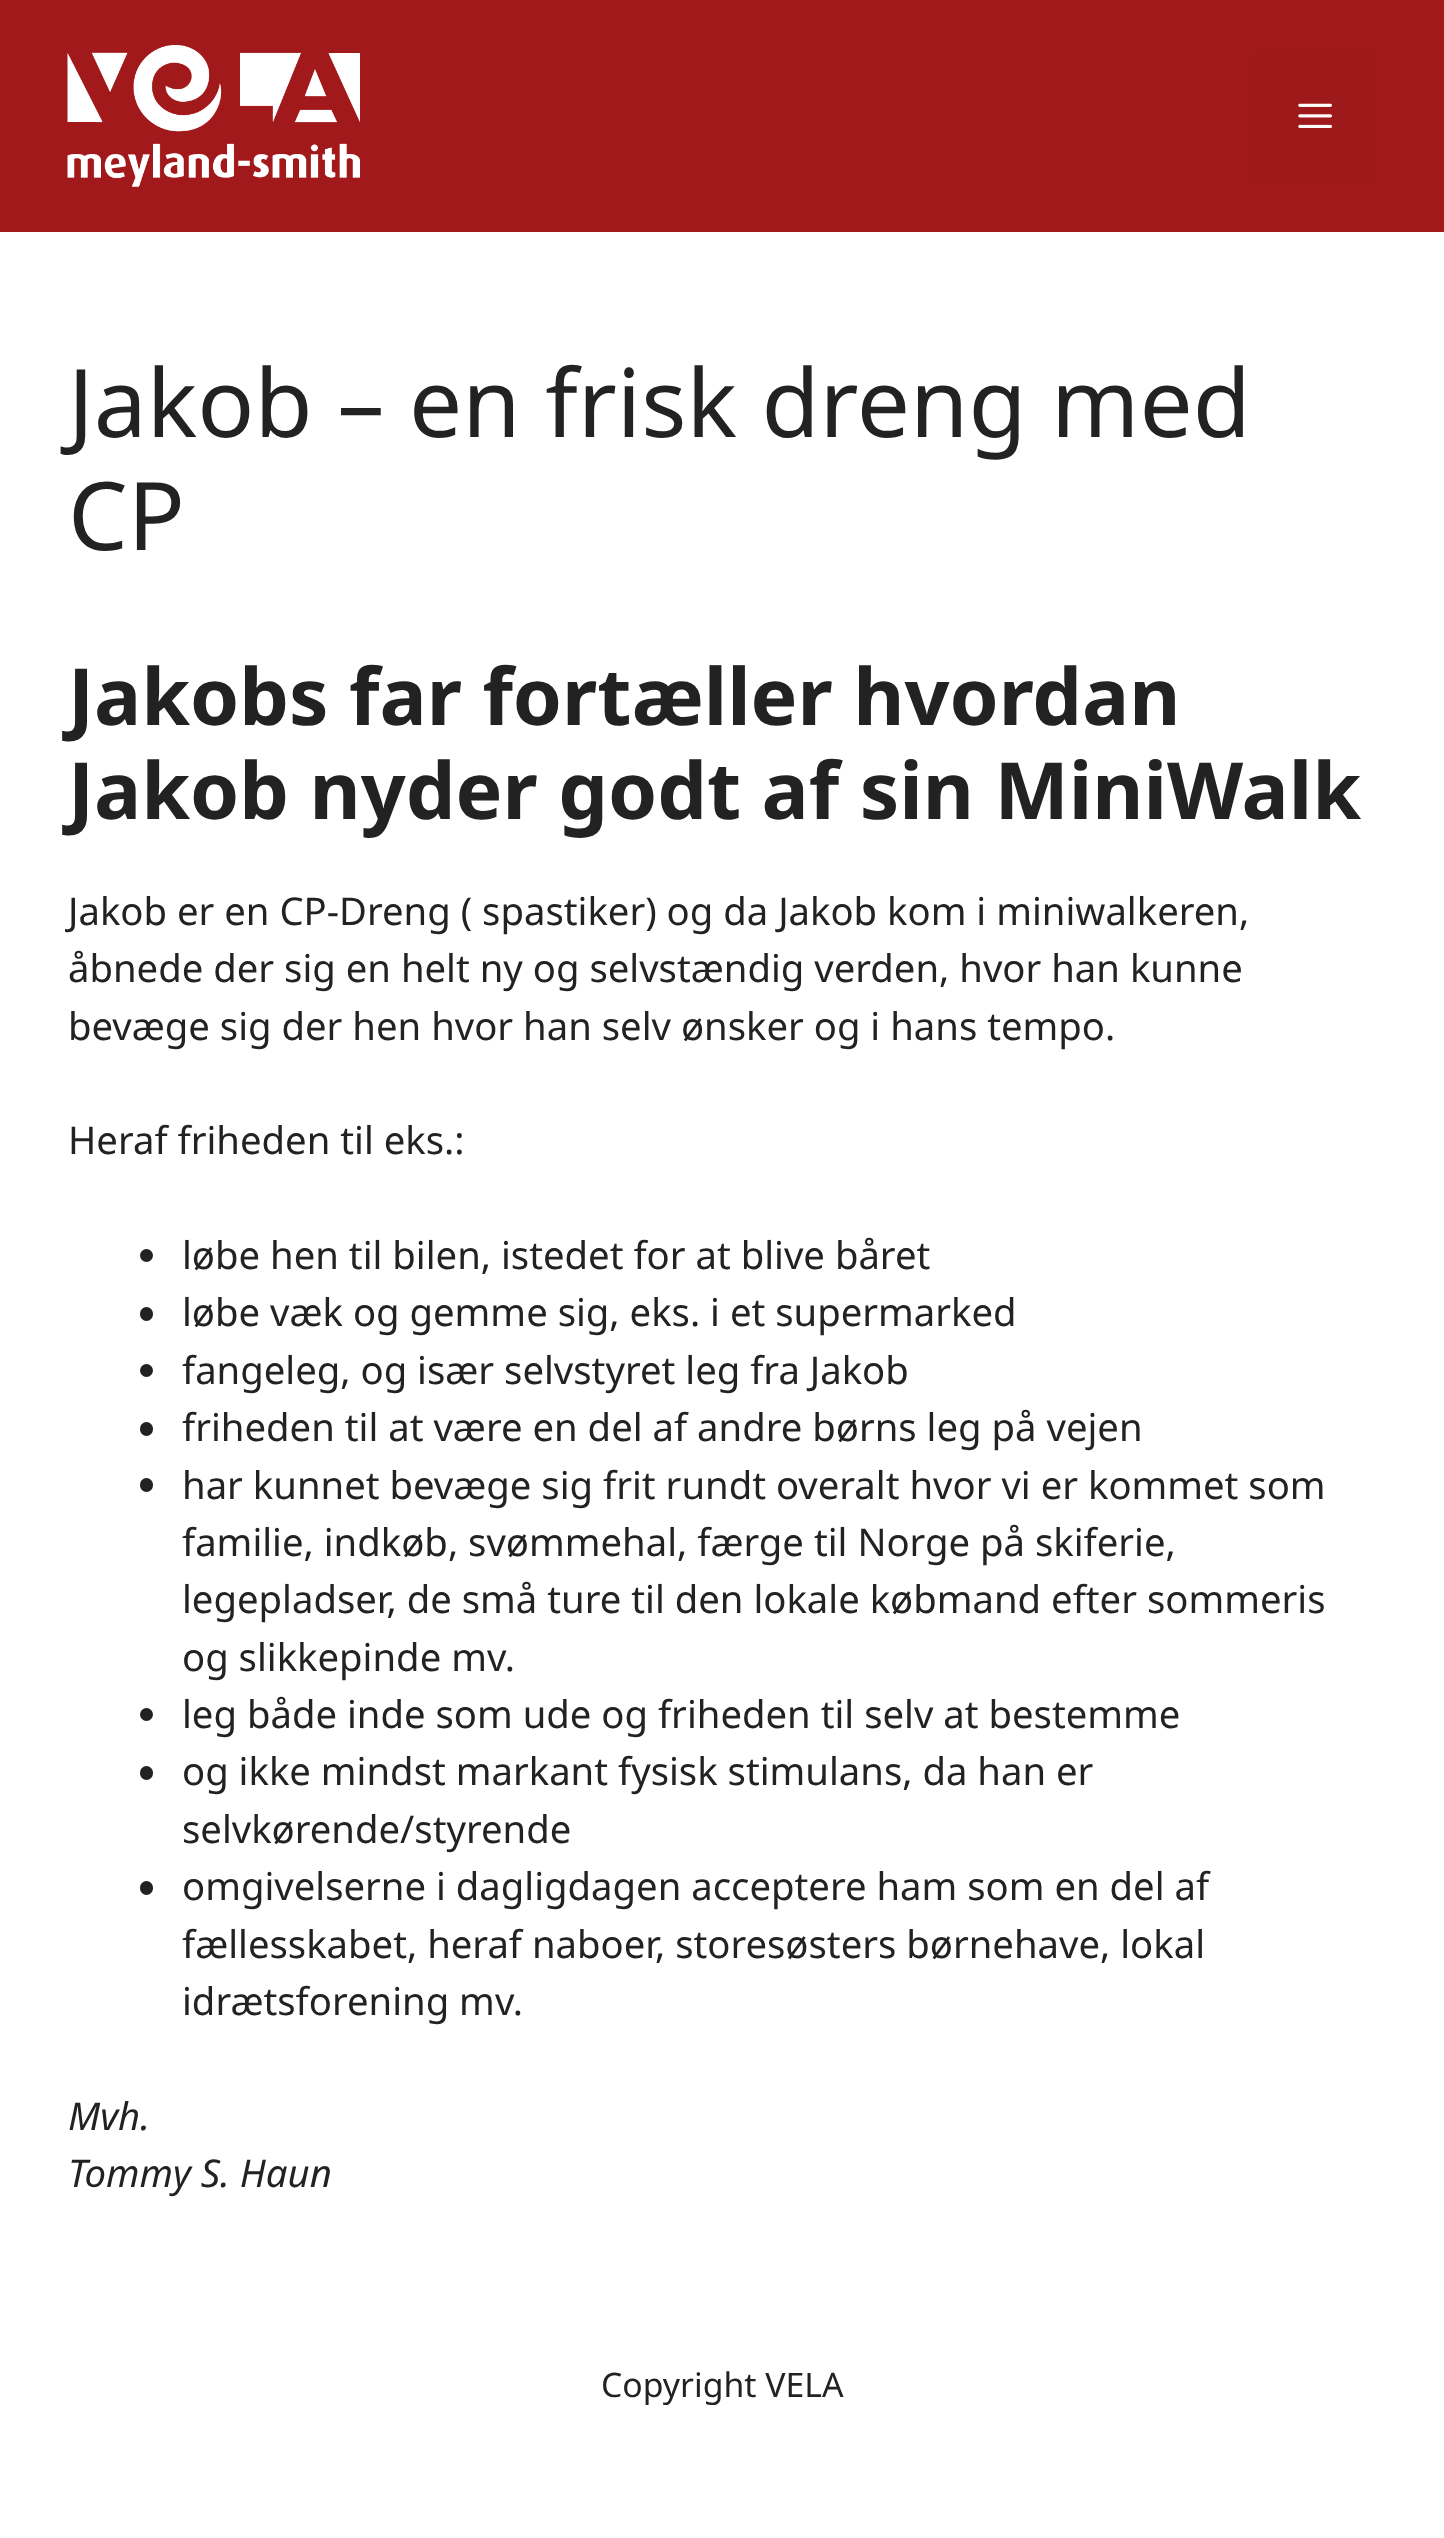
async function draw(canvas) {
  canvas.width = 1444;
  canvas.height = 2538;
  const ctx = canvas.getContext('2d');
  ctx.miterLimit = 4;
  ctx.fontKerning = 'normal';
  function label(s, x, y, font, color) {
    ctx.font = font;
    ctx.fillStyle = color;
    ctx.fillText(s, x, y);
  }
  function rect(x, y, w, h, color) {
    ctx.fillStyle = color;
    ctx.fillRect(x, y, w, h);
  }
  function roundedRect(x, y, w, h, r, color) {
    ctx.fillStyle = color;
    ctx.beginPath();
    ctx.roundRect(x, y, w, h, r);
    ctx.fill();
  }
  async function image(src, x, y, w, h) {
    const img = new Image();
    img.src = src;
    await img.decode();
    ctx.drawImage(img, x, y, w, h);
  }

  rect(0, 0, 1444, 2538, '#fff');
  rect(0, 0, 1444, 232, '#a1191a');
  await image('assets/img1.png', 67, 45, 293, 142);
  rect(1253, 50, 124, 135, '#9e1919');
  await image('assets/img2.png', 1298, 103, 34, 25);
  label('Jakob – en frisk dreng med', 68, 437, '94.5px Noto Sans', '#222');
  label('CP', 68, 550, '94.5px Noto Sans', '#222');
  label('Jakobs far fortæller hvordan', 68, 725, 'bold 78.75px Noto Sans', '#222');
  label('Jakob nyder godt af sin MiniWalk', 68, 819, 'bold 78.75px Noto Sans', '#222');
  label('Jakob er en CP-Dreng ( spastiker) og da Jakob kom i miniwalkeren,', 68, 925, '38.25px Noto Sans', '#222');
  label('åbnede der sig en helt ny og selvstændig verden, hvor han kunne', 68, 982, '38.25px Noto Sans', '#222');
  label('bevæge sig der hen hvor han selv ønsker og i hans tempo.', 68, 1040, '38.25px Noto Sans', '#222');
  label('Heraf friheden til eks.:', 68, 1154, '38.25px Noto Sans', '#222');
  ctx.beginPath();
  ctx.arc(146.5, 1255.5, 6.5, 0, 2 * Math.PI);
  ctx.fill();
  label('løbe hen til bilen, istedet for at blive båret', 182, 1269, '38.25px Noto Sans', '#222');
  roundedRect(140, 1307, 13, 14, 6.5, '#222');
  label('løbe væk og gemme sig, eks. i et supermarked', 182, 1326, '38.25px Noto Sans', '#222');
  ctx.beginPath();
  ctx.arc(146.5, 1370.5, 6.5, 0, 2 * Math.PI);
  ctx.fill();
  label('fangeleg, og især selvstyret leg fra Jakob', 182, 1384, '38.25px Noto Sans', '#222');
  roundedRect(140, 1422, 13, 14, 6.5, '#222');
  label('friheden til at være en del af andre børns leg på vejen', 182, 1441, '38.25px Noto Sans', '#222');
  roundedRect(140, 1478, 13, 14, 6.5, '#222');
  label('har kunnet bevæge sig frit rundt overalt hvor vi er kommet som', 182, 1499, '38.25px Noto Sans', '#222');
  label('familie, indkøb, svømmehal, færge til Norge på skiferie,', 182, 1556, '38.25px Noto Sans', '#222');
  label('legepladser, de små ture til den lokale købmand efter sommeris', 182, 1613, '38.25px Noto Sans', '#222');
  label('og slikkepinde mv.', 182, 1671, '38.25px Noto Sans', '#222');
  ctx.beginPath();
  ctx.arc(146.5, 1714.5, 6.5, 0, 2 * Math.PI);
  ctx.fill();
  label('leg både inde som ude og friheden til selv at bestemme', 182, 1728, '38.25px Noto Sans', '#222');
  roundedRect(140, 1766, 13, 14, 6.5, '#222');
  label('og ikke mindst markant fysisk stimulans, da han er', 182, 1785, '38.25px Noto Sans', '#222');
  label('selvkørende/styrende', 182, 1843, '38.25px Noto Sans', '#222');
  roundedRect(140, 1881, 13, 14, 6.5, '#222');
  label('omgivelserne i dagligdagen acceptere ham som en del af', 182, 1900, '38.25px Noto Sans', '#222');
  label('fællesskabet, heraf naboer, storesøsters børnehave, lokal', 182, 1958, '38.25px Noto Sans', '#222');
  label('idrætsforening mv.', 182, 2015, '38.25px Noto Sans', '#222');
  label('Mvh.', 68, 2130, 'italic 38.25px Noto Sans', '#222');
  label('Tommy S. Haun', 68, 2187, 'italic 38.25px Noto Sans', '#222');
  label('Copyright VELA', 601, 2397, '33.75px Noto Sans', '#222');
}

draw(document.querySelector('canvas'));
